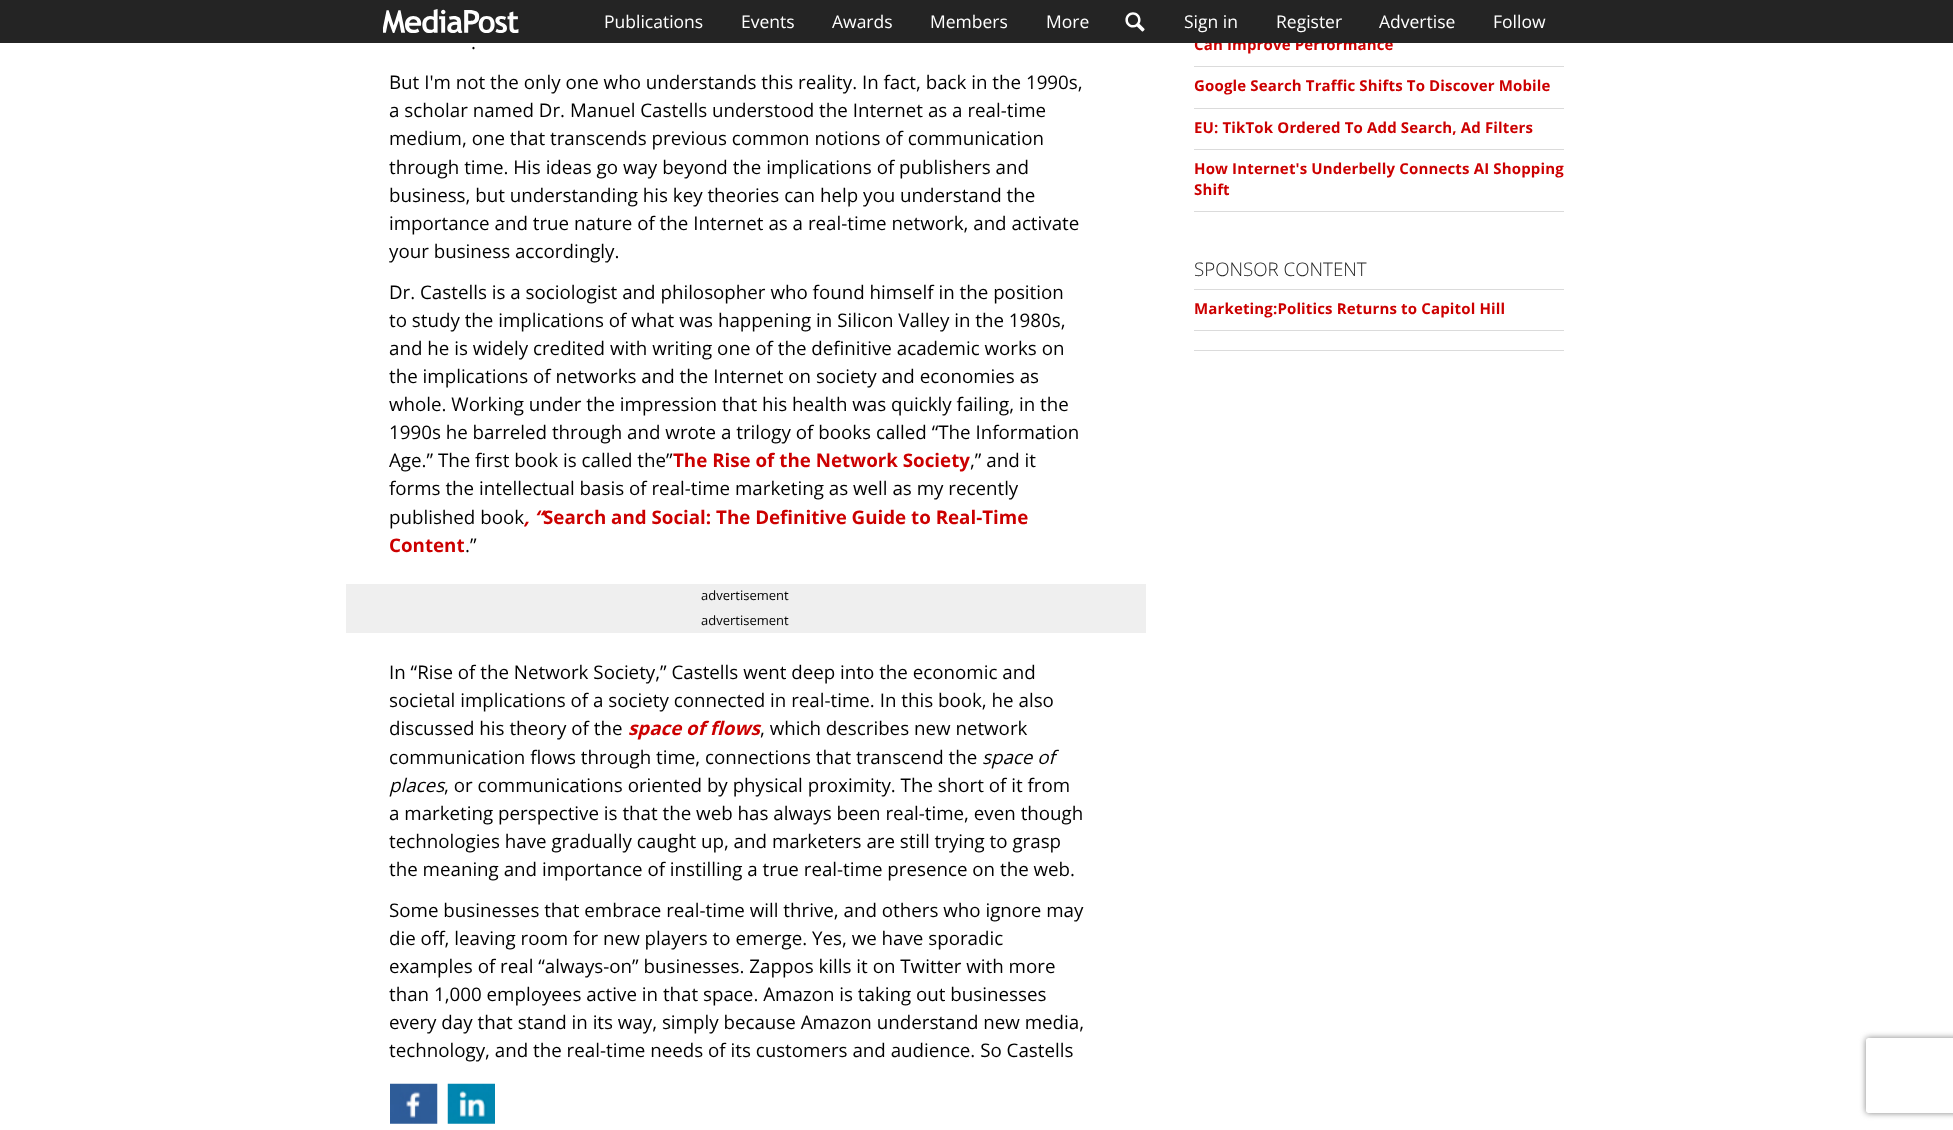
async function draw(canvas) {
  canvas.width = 1953;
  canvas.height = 1130;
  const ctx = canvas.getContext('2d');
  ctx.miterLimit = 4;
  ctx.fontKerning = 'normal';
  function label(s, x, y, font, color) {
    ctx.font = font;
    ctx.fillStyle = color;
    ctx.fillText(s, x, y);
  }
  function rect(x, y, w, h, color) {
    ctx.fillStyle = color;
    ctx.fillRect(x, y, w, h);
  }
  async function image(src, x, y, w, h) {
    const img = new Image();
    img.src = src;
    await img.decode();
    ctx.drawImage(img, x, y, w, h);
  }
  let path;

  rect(0, 0, 1953, 1130, '#fff');
  ctx.letterSpacing = '0.15px';
  label('Can Improve Performance', 1194, 50, 'bold 15px Open Sans', '#c00');
  rect(0, 0, 1953, 43, '#242424');
  await image('assets/img1.png', 383, 9, 136, 24);
  ctx.letterSpacing = '0px';
  label('Publications', 604, 28, '17.5px Open Sans', '#fff');
  label('Events', 741, 28, '17.5px Open Sans', '#fff');
  label('Awards', 832, 28, '17.5px Open Sans', '#fff');
  label('Members', 930, 28, '17.5px Open Sans', '#fff');
  label('More', 1046, 28, '17.5px Open Sans', '#fff');
  await image('assets/img2.png', 1125, 12, 20, 20);
  label('Sign in', 1184, 28, '17.5px Open Sans', '#fff');
  label('Register', 1276, 28, '17.5px Open Sans', '#fff');
  label('Advertise', 1379, 28, '17.5px Open Sans', '#fff');
  label('Follow', 1493, 28, '17.5px Open Sans', '#fff');
  label('.', 471, 49, '18.75px Open Sans', '#000');
  label('But I\'m not the only one who understands this reality. In fact, back in the 1990s,', 389, 89, '18.75px Open Sans', '#000');
  label('a scholar named Dr. Manuel Castells understood the Internet as a real-time', 389, 117, '18.75px Open Sans', '#000');
  label('medium, one that transcends previous common notions of communication', 389, 145, '18.75px Open Sans', '#000');
  label('through time. His ideas go way beyond the implications of publishers and', 389, 174, '18.75px Open Sans', '#000');
  label('business, but understanding his key theories can help you understand the', 389, 202, '18.75px Open Sans', '#000');
  label('importance and true nature of the Internet as a real-time network, and activate', 389, 230, '18.75px Open Sans', '#000');
  label('your business accordingly.', 389, 258, '18.75px Open Sans', '#000');
  label('Dr. Castells is a sociologist and philosopher who found himself in the position', 389, 299, '18.75px Open Sans', '#000');
  label('to study the implications of what was happening in Silicon Valley in the 1980s,', 389, 327, '18.75px Open Sans', '#000');
  label('and he is widely credited with writing one of the definitive academic works on', 389, 355, '18.75px Open Sans', '#000');
  label('the implications of networks and the Internet on society and economies as', 389, 383, '18.75px Open Sans', '#000');
  label('whole. Working under the impression that his health was quickly failing, in the', 389, 411, '18.75px Open Sans', '#000');
  label('1990s he barreled through and wrote a trilogy of books called “The Information', 389, 439, '18.75px Open Sans', '#000');
  label('Age.” The first book is called the”', 389, 467, '18.75px Open Sans', '#000');
  label('The Rise of the Network Society', 673, 467, 'bold 18.75px Open Sans', '#c00');
  label(',” and it', 970, 467, '18.75px Open Sans', '#000');
  label('forms the intellectual basis of real-time marketing as well as my recently', 389, 495, '18.75px Open Sans', '#000');
  label('published book', 389, 524, '18.75px Open Sans', '#000');
  label(', “', 524, 524, 'italic bold 18.75px Open Sans', '#c00');
  label('Search and Social: The Definitive Guide to Real-Time', 543, 524, 'bold 18.75px Open Sans', '#c00');
  label('Content', 389, 552, 'bold 18.75px Open Sans', '#c00');
  label('.”', 465, 552, '18.75px Open Sans', '#000');
  rect(346, 584, 800, 49, '#efefef');
  label('advertisement', 701, 600, '13px Open Sans', '#000');
  label('advertisement', 701, 625, '13px Open Sans', '#000');
  label('In “Rise of the Network Society,” Castells went deep into the economic and', 389, 679, '18.75px Open Sans', '#000');
  label('societal implications of a society connected in real-time. In this book, he also', 389, 707, '18.75px Open Sans', '#000');
  label('discussed his theory of the', 389, 735, '18.75px Open Sans', '#000');
  label('space of flows', 628, 735, 'italic bold 18.75px Open Sans', '#c00');
  label(', which describes new network', 760, 735, '18.75px Open Sans', '#000');
  label('communication flows through time, connections that transcend the', 389, 764, '18.75px Open Sans', '#000');
  label('space of', 982, 764, 'italic 18.75px Open Sans', '#000');
  label('places', 389, 792, 'italic 18.75px Open Sans', '#000');
  label(', or communications oriented by physical proximity. The short of it from', 444, 792, '18.75px Open Sans', '#000');
  label('a marketing perspective is that the web has always been real-time, even though', 389, 820, '18.75px Open Sans', '#000');
  label('technologies have gradually caught up, and marketers are still trying to grasp', 389, 848, '18.75px Open Sans', '#000');
  label('the meaning and importance of instilling a true real-time presence on the web.', 389, 876, '18.75px Open Sans', '#000');
  label('Some businesses that embrace real-time will thrive, and others who ignore may', 389, 917, '18.75px Open Sans', '#000');
  label('die off, leaving room for new players to emerge. Yes, we have sporadic', 389, 945, '18.75px Open Sans', '#000');
  label('examples of real “always-on” businesses. Zappos kills it on Twitter with more', 389, 973, '18.75px Open Sans', '#000');
  label('than 1,000 employees active in that space. Amazon is taking out businesses', 389, 1001, '18.75px Open Sans', '#000');
  label('every day that stand in its way, simply because Amazon understand new media,', 389, 1029, '18.75px Open Sans', '#000');
  label('technology, and the real-time needs of its customers and audience. So Castells', 389, 1057, '18.75px Open Sans', '#000');
  await image('assets/img3.png', 390, 1083, 48, 41);
  await image('assets/img4.png', 447, 1083, 48, 41);
  rect(1194, 66, 370, 1, '#dbdbdb');
  rect(1194, 108, 370, 1, '#dbdbdb');
  ctx.letterSpacing = '0.15px';
  label('Google Search Traffic Shifts To Discover Mobile', 1194, 91, 'bold 15px Open Sans', '#c00');
  rect(1194, 149, 370, 1, '#dbdbdb');
  label('EU: TikTok Ordered To Add Search, Ad Filters', 1194, 133, 'bold 15px Open Sans', '#c00');
  rect(1194, 211, 370, 1, '#dbdbdb');
  label('How Internet\'s Underbelly Connects AI Shopping', 1194, 174, 'bold 15px Open Sans', '#c00');
  label('Shift', 1194, 195, 'bold 15px Open Sans', '#c00');
  rect(1194, 289, 370, 1, '#dbdbdb');
  ctx.letterSpacing = '0px';
  label('SPONSOR CONTENT', 1194, 276, '300 18.75px Open Sans', '#242424');
  rect(1194, 330, 370, 1, '#dbdbdb');
  ctx.letterSpacing = '0.15px';
  label('Marketing:Politics Returns to Capitol Hill', 1194, 314, 'bold 15px Open Sans', '#c00');
  rect(1194, 350, 370, 1, '#dbdbdb');
  ctx.save();
  path = new Path2D('M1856 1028H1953V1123H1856ZM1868.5 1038H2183.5C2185 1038 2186 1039 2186 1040.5V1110.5C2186 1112 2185 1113 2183.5 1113H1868.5C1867 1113 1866 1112 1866 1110.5V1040.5C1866 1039 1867 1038 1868.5 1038Z');
  ctx.clip(path, 'evenodd');
  ctx.fillStyle = '#808080';
  ctx.filter = 'blur(3px)';
  ctx.beginPath();
  ctx.roundRect(1866, 1038, 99, 75, 2.5);
  ctx.fill();
  ctx.filter = 'none';
  ctx.restore();
}

draw(document.querySelector('canvas'));
